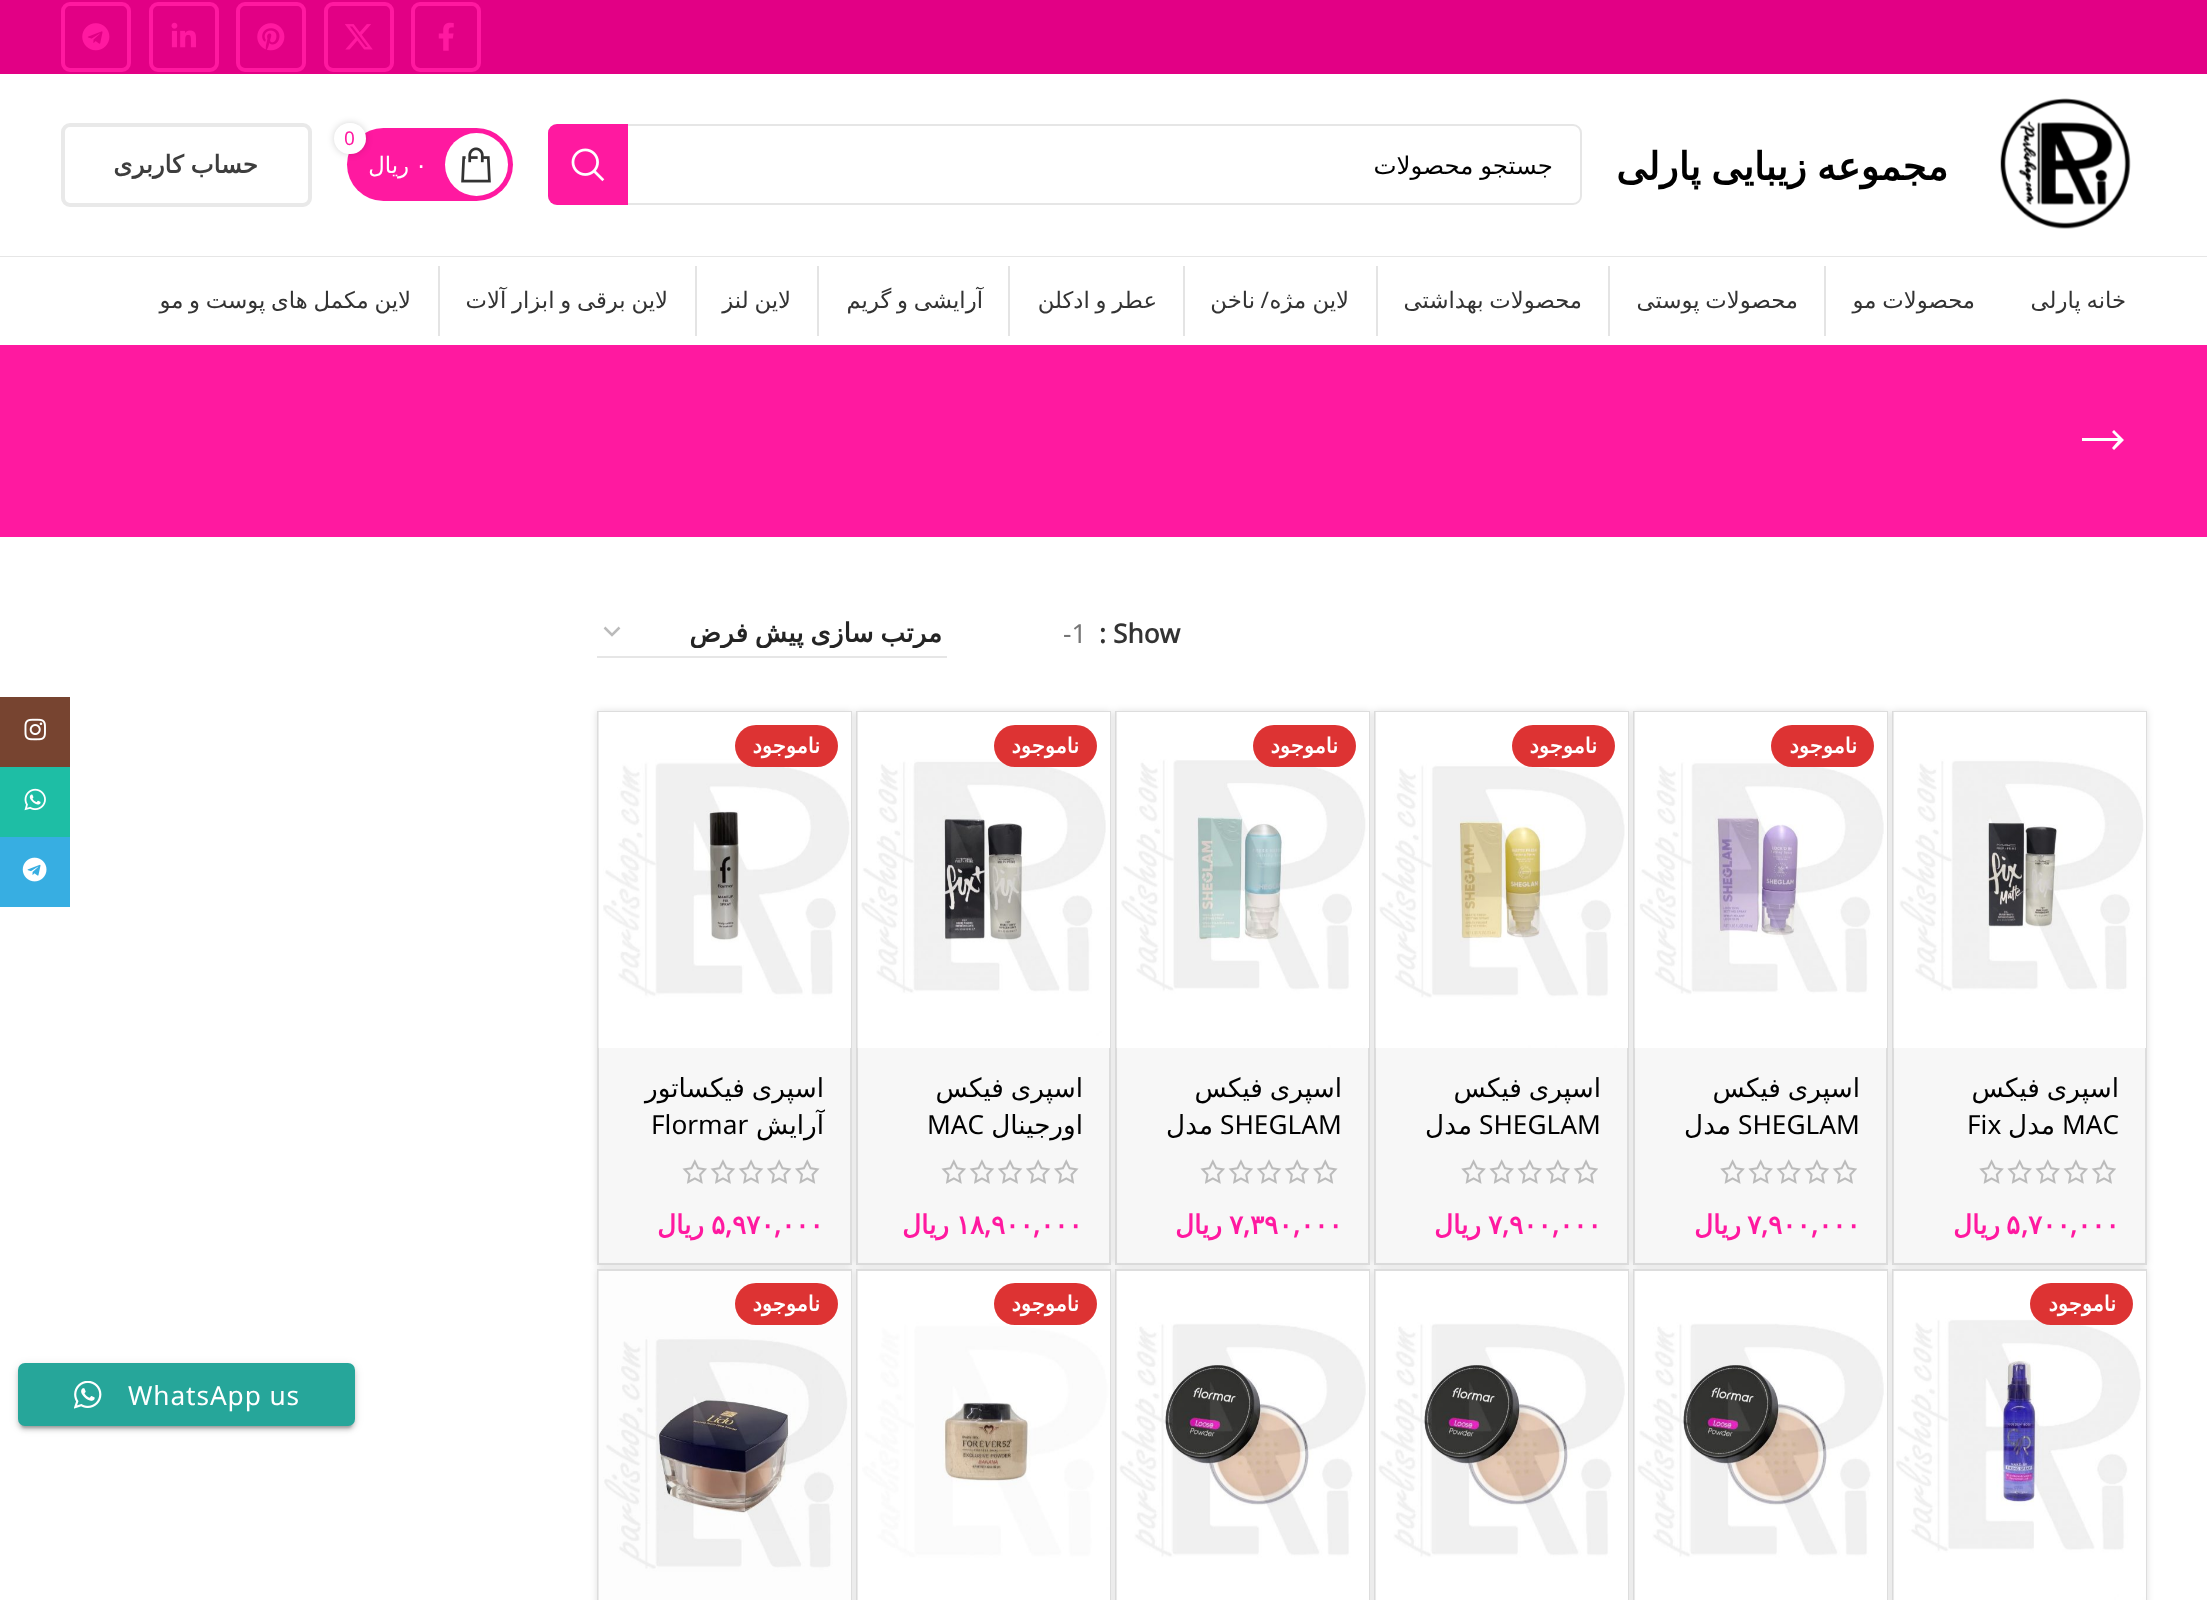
async function draw(canvas) {
  canvas.width = 2207;
  canvas.height = 1600;
  const ctx = canvas.getContext('2d');
  ctx.miterLimit = 4;
  ctx.fontKerning = 'normal';
  function label(s, x, y, font, color) {
    ctx.font = font;
    ctx.fillStyle = color;
    ctx.fillText(s, x, y);
  }
  function rect(x, y, w, h, color) {
    ctx.fillStyle = color;
    ctx.fillRect(x, y, w, h);
  }
  function roundedRect(x, y, w, h, r, color) {
    ctx.fillStyle = color;
    ctx.beginPath();
    ctx.roundRect(x, y, w, h, r);
    ctx.fill();
  }
  async function image(src, x, y, w, h) {
    const img = new Image();
    img.src = src;
    await img.decode();
    ctx.drawImage(img, x, y, w, h);
  }
  let path;

  rect(0, 0, 2207, 1600, '#fff');
  rect(0, 0, 2207, 74, '#e20085');
  ctx.beginPath();
  ctx.roundRect(413, 4, 66, 66, 7);
  ctx.strokeStyle = '#ff19a0';
  ctx.lineWidth = 4;
  ctx.stroke();
  await image('assets/img1.png', 438, 22, 16, 29);
  ctx.beginPath();
  ctx.roundRect(326, 4, 66, 66, 7);
  ctx.stroke();
  await image('assets/img2.png', 345, 24, 28, 26);
  ctx.beginPath();
  ctx.roundRect(238, 4, 66, 66, 7);
  ctx.stroke();
  await image('assets/img3.png', 257, 23, 28, 28);
  ctx.beginPath();
  ctx.roundRect(151, 4, 66, 66, 7);
  ctx.stroke();
  await image('assets/img4.png', 171, 22, 25, 26);
  ctx.beginPath();
  ctx.roundRect(63, 4, 66, 66, 7);
  ctx.stroke();
  await image('assets/img5.png', 82, 23, 28, 28);
  rect(0, 256, 2207, 1, '#e6e6e6');
  await image('assets/img6.png', 2000, 98, 131, 131);
  ctx.wordSpacing = '-2px';
  ctx.direction = 'rtl';
  label('مجموعه زیبایی پارلی', 1948, 180, 'bold 38.5px DejaVu Sans', '#000');
  ctx.beginPath();
  ctx.roundRect(549, 125, 1032, 79, 8);
  ctx.strokeStyle = '#e6e6e6';
  ctx.lineWidth = 2;
  ctx.stroke();
  ctx.wordSpacing = '-1px';
  label('جستجو محصولات', 1553, 174, '24.5px DejaVu Sans', '#000');
  ctx.fillStyle = '#ff19a0';
  ctx.beginPath();
  ctx.roundRect(548, 124, 80, 81, [9, 0, 0, 9]);
  ctx.fill();
  await image('assets/img7.png', 571, 148, 34, 34);
  roundedRect(347, 128, 166, 73, 36.5, '#ff19a0');
  ctx.fillStyle = '#fff';
  ctx.beginPath();
  ctx.arc(476.5, 164.5, 31.5, 0, 2 * Math.PI);
  ctx.fill();
  ctx.fillStyle = '#0000002b';
  ctx.filter = 'blur(3.5px)';
  ctx.beginPath();
  ctx.roundRect(334, 123, 32, 31, 15.5);
  ctx.fill();
  ctx.filter = 'none';
  roundedRect(334, 123, 32, 31, 15.5, '#fff');
  ctx.wordSpacing = '0px';
  ctx.direction = 'ltr';
  label('0', 344, 145, '19px Noto Sans Old Persian', '#ff19a0');
  await image('assets/img8.png', 461, 147, 30, 36);
  label('۰', 415, 173, '22.75px DejaVu Sans', '#fff');
  ctx.direction = 'rtl';
  label('ریال', 409, 173, '22.75px DejaVu Sans', '#fff');
  ctx.beginPath();
  ctx.roundRect(63, 125, 247, 80, 7);
  ctx.strokeStyle = '#e9e9e9';
  ctx.lineWidth = 4;
  ctx.stroke();
  ctx.wordSpacing = '-1px';
  label('حساب کاربری', 258, 173, 'bold 24.5px DejaVu Sans', '#3e3e3e');
  ctx.wordSpacing = '-1.5px';
  label('خانه پارلی', 2126, 308, '22.75px DejaVu Sans', '#333');
  label('محصولات مو', 1975, 308, '22.75px DejaVu Sans', '#333');
  rect(1824, 266, 2, 70, '#e4e4e4');
  label('محصولات پوستی', 1798, 308, '22.75px DejaVu Sans', '#333');
  rect(1608, 266, 2, 70, '#e4e4e4');
  label('محصولات بهداشتی', 1582, 308, '22.75px DejaVu Sans', '#333');
  rect(1376, 266, 2, 70, '#e4e4e4');
  ctx.wordSpacing = '-1px';
  label('لاین مژه', 1349, 308, '22.75px DejaVu Sans', '#333');
  ctx.wordSpacing = '0px';
  label('/', 1269, 308, '22.75px Noto Sans Old Persian', '#333');
  label('ناخن', 1255, 308, '22.75px DejaVu Sans', '#333');
  rect(1183, 266, 2, 70, '#e4e4e4');
  ctx.wordSpacing = '-1.5px';
  label('عطر و ادکلن', 1157, 308, '22.75px DejaVu Sans', '#333');
  rect(1008, 266, 2, 70, '#e4e4e4');
  label('آرایشی و گریم', 983, 308, '22.75px DejaVu Sans', '#333');
  rect(817, 266, 2, 70, '#e4e4e4');
  label('لاین لنز', 791, 308, '22.75px DejaVu Sans', '#333');
  rect(695, 266, 2, 70, '#e4e4e4');
  label('لاین برقی و ابزار آلات', 668, 308, '22.75px DejaVu Sans', '#333');
  rect(438, 266, 2, 70, '#e4e4e4');
  label('لاین مکمل های پوست و مو', 411, 308, '22.75px DejaVu Sans', '#333');
  rect(0, 345, 2207, 192, '#ff19a0');
  ctx.fillStyle = '#fff';
  path = new Path2D('M2124 440L2114 430L2112 432L2118 438H2082V441H2118L2112 448L2114 450Z');
  ctx.fill(path);
  ctx.wordSpacing = '0px';
  ctx.direction = 'ltr';
  label('Show', 1113, 643, 'bold 26.25px Noto Sans Old Persian', '#333');
  label(':', 1099, 643, 'bold 26.25px Noto Sans Old Persian', '#333');
  label('-1', 1063, 643, '26.25px Noto Sans Old Persian', '#767676');
  path = new Path2D('M604.5 627.5L612 635L619.5 627.5');
  ctx.strokeStyle = '#bbb';
  ctx.lineWidth = 2.5;
  ctx.stroke(path);
  rect(597, 656, 350, 2, '#e6e6e6');
  ctx.save();
  ctx.beginPath();
  ctx.rect(632, 616, 311, 32);
  ctx.clip();
  ctx.wordSpacing = '-1.5px';
  ctx.direction = 'rtl';
  label('مرتب سازی پیش فرض', 942, 642, 'bold 26.25px DejaVu Sans', '#242424');
  ctx.restore();
  ctx.fillStyle = '#0000001f';
  ctx.filter = 'blur(3.5px)';
  ctx.beginPath();
  ctx.rect(1892, 711, 255, 554);
  ctx.fill();
  ctx.filter = 'none';
  rect(1894, 1048, 251, 215, '#f7f7f7');
  ctx.strokeStyle = '#ddd';
  ctx.lineWidth = 2;
  ctx.strokeRect(1893, 712, 253, 552);
  await image('assets/img9.png', 1893, 712, 253, 336);
  ctx.wordSpacing = '-1.5px';
  ctx.direction = 'rtl';
  label('اسپری فیکس', 2119, 1097, '26.25px DejaVu Sans', '#000');
  ctx.wordSpacing = '0px';
  ctx.direction = 'ltr';
  label('MAC', 2062, 1134, '26.25px Noto Sans Old Persian', '#000');
  ctx.direction = 'rtl';
  label('مدل', 2055, 1134, '26.25px DejaVu Sans', '#000');
  ctx.direction = 'ltr';
  label('Fix', 1967, 1134, '26.25px Noto Sans Old Persian', '#000');
  await image('assets/img10.png', 1979, 1159, 137, 25);
  label('۰۰۰', 2077, 1234, 'bold 26.25px DejaVu Sans', '#ff19a0');
  label('۷۰۰', 2028, 1234, 'bold 26.25px DejaVu Sans', '#ff19a0');
  label('۵', 2006, 1234, 'bold 26.25px DejaVu Sans', '#ff19a0');
  ctx.direction = 'rtl';
  label('ریال', 2000, 1234, 'bold 26.25px DejaVu Sans', '#ff19a0');
  ctx.direction = 'ltr';
  label(',', 2070, 1234, 'bold 26.25px Noto Sans Old Persian', '#ff19a0');
  label(',', 2021, 1234, 'bold 26.25px Noto Sans Old Persian', '#ff19a0');
  ctx.fillStyle = '#0000001f';
  ctx.filter = 'blur(3.5px)';
  ctx.beginPath();
  ctx.rect(1633, 711, 255, 554);
  ctx.fill();
  ctx.filter = 'none';
  rect(1635, 1048, 251, 215, '#f7f7f7');
  ctx.strokeRect(1634, 712, 253, 552);
  await image('assets/img11.png', 1634, 712, 253, 336);
  roundedRect(1771, 725, 103, 42, 21, '#d33');
  ctx.direction = 'rtl';
  label('ناموجود', 1857, 753, 'bold 21px DejaVu Sans', '#fff');
  ctx.wordSpacing = '-1.5px';
  label('اسپری فیکس', 1860, 1097, '26.25px DejaVu Sans', '#000');
  ctx.wordSpacing = '0px';
  ctx.direction = 'ltr';
  label('SHEGLAM', 1738, 1134, '26.25px Noto Sans Old Persian', '#000');
  ctx.direction = 'rtl';
  label('مدل', 1731, 1134, '26.25px DejaVu Sans', '#000');
  await image('assets/img10.png', 1720, 1159, 137, 25);
  ctx.direction = 'ltr';
  label('۰۰۰', 1818, 1234, 'bold 26.25px DejaVu Sans', '#ff19a0');
  label('۹۰۰', 1768, 1234, 'bold 26.25px DejaVu Sans', '#ff19a0');
  label('۷', 1747, 1234, 'bold 26.25px DejaVu Sans', '#ff19a0');
  ctx.direction = 'rtl';
  label('ریال', 1741, 1234, 'bold 26.25px DejaVu Sans', '#ff19a0');
  ctx.direction = 'ltr';
  label(',', 1811, 1234, 'bold 26.25px Noto Sans Old Persian', '#ff19a0');
  label(',', 1761, 1234, 'bold 26.25px Noto Sans Old Persian', '#ff19a0');
  ctx.fillStyle = '#0000001f';
  ctx.filter = 'blur(3.5px)';
  ctx.beginPath();
  ctx.rect(1374, 711, 255, 554);
  ctx.fill();
  ctx.filter = 'none';
  rect(1376, 1048, 251, 215, '#f7f7f7');
  ctx.strokeRect(1375, 712, 253, 552);
  await image('assets/img12.png', 1375, 712, 253, 336);
  roundedRect(1512, 725, 103, 42, 21, '#d33');
  ctx.direction = 'rtl';
  label('ناموجود', 1597, 753, 'bold 21px DejaVu Sans', '#fff');
  ctx.wordSpacing = '-1.5px';
  label('اسپری فیکس', 1601, 1097, '26.25px DejaVu Sans', '#000');
  ctx.wordSpacing = '0px';
  ctx.direction = 'ltr';
  label('SHEGLAM', 1479, 1134, '26.25px Noto Sans Old Persian', '#000');
  ctx.direction = 'rtl';
  label('مدل', 1472, 1134, '26.25px DejaVu Sans', '#000');
  await image('assets/img10.png', 1461, 1159, 137, 25);
  ctx.direction = 'ltr';
  label('۰۰۰', 1559, 1234, 'bold 26.25px DejaVu Sans', '#ff19a0');
  label('۹۰۰', 1509, 1234, 'bold 26.25px DejaVu Sans', '#ff19a0');
  label('۷', 1488, 1234, 'bold 26.25px DejaVu Sans', '#ff19a0');
  ctx.direction = 'rtl';
  label('ریال', 1481, 1234, 'bold 26.25px DejaVu Sans', '#ff19a0');
  ctx.direction = 'ltr';
  label(',', 1552, 1234, 'bold 26.25px Noto Sans Old Persian', '#ff19a0');
  label(',', 1502, 1234, 'bold 26.25px Noto Sans Old Persian', '#ff19a0');
  ctx.fillStyle = '#0000001f';
  ctx.filter = 'blur(3.5px)';
  ctx.beginPath();
  ctx.rect(1115, 711, 255, 554);
  ctx.fill();
  ctx.filter = 'none';
  rect(1117, 1048, 251, 215, '#f7f7f7');
  ctx.strokeRect(1116, 712, 253, 552);
  await image('assets/img13.png', 1116, 712, 253, 336);
  roundedRect(1253, 725, 103, 42, 21, '#d33');
  ctx.direction = 'rtl';
  label('ناموجود', 1338, 753, 'bold 21px DejaVu Sans', '#fff');
  ctx.wordSpacing = '-1.5px';
  label('اسپری فیکس', 1342, 1097, '26.25px DejaVu Sans', '#000');
  ctx.wordSpacing = '0px';
  ctx.direction = 'ltr';
  label('SHEGLAM', 1220, 1134, '26.25px Noto Sans Old Persian', '#000');
  ctx.direction = 'rtl';
  label('مدل', 1213, 1134, '26.25px DejaVu Sans', '#000');
  await image('assets/img14.png', 1200, 1159, 138, 25);
  ctx.direction = 'ltr';
  label('۰۰۰', 1300, 1234, 'bold 26.25px DejaVu Sans', '#ff19a0');
  label('۳۹۰', 1250, 1234, 'bold 26.25px DejaVu Sans', '#ff19a0');
  label('۷', 1229, 1234, 'bold 26.25px DejaVu Sans', '#ff19a0');
  ctx.direction = 'rtl';
  label('ریال', 1222, 1234, 'bold 26.25px DejaVu Sans', '#ff19a0');
  ctx.direction = 'ltr';
  label(',', 1293, 1234, 'bold 26.25px Noto Sans Old Persian', '#ff19a0');
  label(',', 1243, 1234, 'bold 26.25px Noto Sans Old Persian', '#ff19a0');
  ctx.fillStyle = '#0000001f';
  ctx.filter = 'blur(3.5px)';
  ctx.beginPath();
  ctx.rect(856, 711, 255, 554);
  ctx.fill();
  ctx.filter = 'none';
  rect(858, 1048, 251, 215, '#f7f7f7');
  ctx.strokeRect(857, 712, 253, 552);
  await image('assets/img15.png', 857, 712, 253, 336);
  roundedRect(994, 725, 103, 42, 21, '#d33');
  ctx.direction = 'rtl';
  label('ناموجود', 1079, 753, 'bold 21px DejaVu Sans', '#fff');
  ctx.wordSpacing = '-1.5px';
  label('اسپری فیکس', 1083, 1097, '26.25px DejaVu Sans', '#000');
  ctx.wordSpacing = '0px';
  label('اورجینال', 1083, 1134, '26.25px DejaVu Sans', '#000');
  ctx.direction = 'ltr';
  label('MAC', 927, 1134, '26.25px Noto Sans Old Persian', '#000');
  await image('assets/img14.png', 941, 1159, 138, 25);
  label('۰۰۰', 1040, 1234, 'bold 26.25px DejaVu Sans', '#ff19a0');
  label('۹۰۰', 991, 1234, 'bold 26.25px DejaVu Sans', '#ff19a0');
  label('۱۸', 956, 1234, 'bold 26.25px DejaVu Sans', '#ff19a0');
  ctx.direction = 'rtl';
  label('ریال', 949, 1234, 'bold 26.25px DejaVu Sans', '#ff19a0');
  ctx.direction = 'ltr';
  label(',', 1033, 1234, 'bold 26.25px Noto Sans Old Persian', '#ff19a0');
  label(',', 984, 1234, 'bold 26.25px Noto Sans Old Persian', '#ff19a0');
  ctx.fillStyle = '#0000001f';
  ctx.filter = 'blur(3.5px)';
  ctx.beginPath();
  ctx.rect(597, 711, 255, 554);
  ctx.fill();
  ctx.filter = 'none';
  rect(599, 1048, 251, 215, '#f7f7f7');
  ctx.strokeRect(598, 712, 253, 552);
  await image('assets/img16.png', 598, 712, 253, 336);
  roundedRect(735, 725, 103, 42, 21, '#d33');
  ctx.direction = 'rtl';
  label('ناموجود', 820, 753, 'bold 21px DejaVu Sans', '#fff');
  ctx.wordSpacing = '-1.5px';
  label('اسپری فیکساتور', 824, 1097, '26.25px DejaVu Sans', '#000');
  ctx.wordSpacing = '0px';
  label('آرایش', 824, 1134, '26.25px DejaVu Sans', '#000');
  ctx.direction = 'ltr';
  label('Flormar', 651, 1134, '26.25px Noto Sans Old Persian', '#000');
  await image('assets/img14.png', 682, 1159, 138, 25);
  label('۰۰۰', 781, 1234, 'bold 26.25px DejaVu Sans', '#ff19a0');
  label('۹۷۰', 732, 1234, 'bold 26.25px DejaVu Sans', '#ff19a0');
  label('۵', 711, 1234, 'bold 26.25px DejaVu Sans', '#ff19a0');
  ctx.direction = 'rtl';
  label('ریال', 704, 1234, 'bold 26.25px DejaVu Sans', '#ff19a0');
  ctx.direction = 'ltr';
  label(',', 774, 1234, 'bold 26.25px Noto Sans Old Persian', '#ff19a0');
  label(',', 725, 1234, 'bold 26.25px Noto Sans Old Persian', '#ff19a0');
  ctx.fillStyle = '#0000001f';
  ctx.filter = 'blur(3.5px)';
  ctx.beginPath();
  ctx.rect(1892, 1269, 255, 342);
  ctx.fill();
  ctx.filter = 'none';
  ctx.strokeRect(1893, 1270, 253, 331);
  await image('assets/img17.png', 1893, 1271, 253, 329);
  roundedRect(2030, 1283, 103, 42, 21, '#d33');
  ctx.direction = 'rtl';
  label('ناموجود', 2116, 1311, 'bold 21px DejaVu Sans', '#fff');
  ctx.fillStyle = '#0000001f';
  ctx.filter = 'blur(3.5px)';
  ctx.beginPath();
  ctx.rect(1633, 1269, 255, 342);
  ctx.fill();
  ctx.filter = 'none';
  ctx.strokeRect(1634, 1270, 253, 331);
  await image('assets/img18.png', 1634, 1271, 253, 329);
  ctx.filter = 'blur(3.5px)';
  ctx.beginPath();
  ctx.rect(1374, 1269, 255, 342);
  ctx.fill();
  ctx.filter = 'none';
  ctx.strokeRect(1375, 1270, 253, 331);
  await image('assets/img19.png', 1375, 1271, 253, 329);
  ctx.filter = 'blur(3.5px)';
  ctx.beginPath();
  ctx.rect(1115, 1269, 255, 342);
  ctx.fill();
  ctx.filter = 'none';
  ctx.strokeRect(1116, 1270, 253, 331);
  await image('assets/img20.png', 1116, 1271, 253, 329);
  ctx.filter = 'blur(3.5px)';
  ctx.beginPath();
  ctx.rect(856, 1269, 255, 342);
  ctx.fill();
  ctx.filter = 'none';
  ctx.strokeRect(857, 1270, 253, 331);
  await image('assets/img21.png', 857, 1271, 253, 329);
  roundedRect(994, 1283, 103, 42, 21, '#d33');
  label('ناموجود', 1079, 1311, 'bold 21px DejaVu Sans', '#fff');
  ctx.fillStyle = '#0000001f';
  ctx.filter = 'blur(3.5px)';
  ctx.beginPath();
  ctx.rect(597, 1269, 255, 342);
  ctx.fill();
  ctx.filter = 'none';
  ctx.strokeRect(598, 1270, 253, 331);
  await image('assets/img22.png', 598, 1271, 253, 329);
  roundedRect(735, 1283, 103, 42, 21, '#d33');
  label('ناموجود', 820, 1311, 'bold 21px DejaVu Sans', '#fff');
  rect(0, 697, 70, 70, '#774430');
  await image('assets/img23.png', 24, 718, 22, 23);
  rect(0, 767, 70, 70, '#1ebea5');
  await image('assets/img24.png', 24, 788, 22, 23);
  rect(0, 837, 70, 70, '#37aee2');
  await image('assets/img25.png', 22, 857, 25, 25);
  ctx.fillStyle = '#00000033';
  ctx.filter = 'blur(1px)';
  ctx.beginPath();
  ctx.roundRect(21, 1372, 331, 56, 4);
  ctx.fill();
  ctx.filter = 'none';
  ctx.fillStyle = '#0000001f';
  ctx.filter = 'blur(4.5px)';
  ctx.beginPath();
  ctx.roundRect(18, 1365, 337, 63, 7);
  ctx.fill();
  ctx.filter = 'none';
  ctx.fillStyle = '#00000024';
  ctx.filter = 'blur(2px)';
  ctx.beginPath();
  ctx.roundRect(18, 1367, 337, 63, 7);
  ctx.fill();
  ctx.filter = 'none';
  roundedRect(18, 1363, 337, 63, 7, '#26a69a');
  ctx.letterSpacing = '0.9px';
  ctx.direction = 'ltr';
  label('WhatsApp us', 128, 1405, '26.25px Noto Sans Old Persian', '#fff');
  await image('assets/img26.png', 74, 1381, 28, 28);
}

draw(document.querySelector('canvas'));
